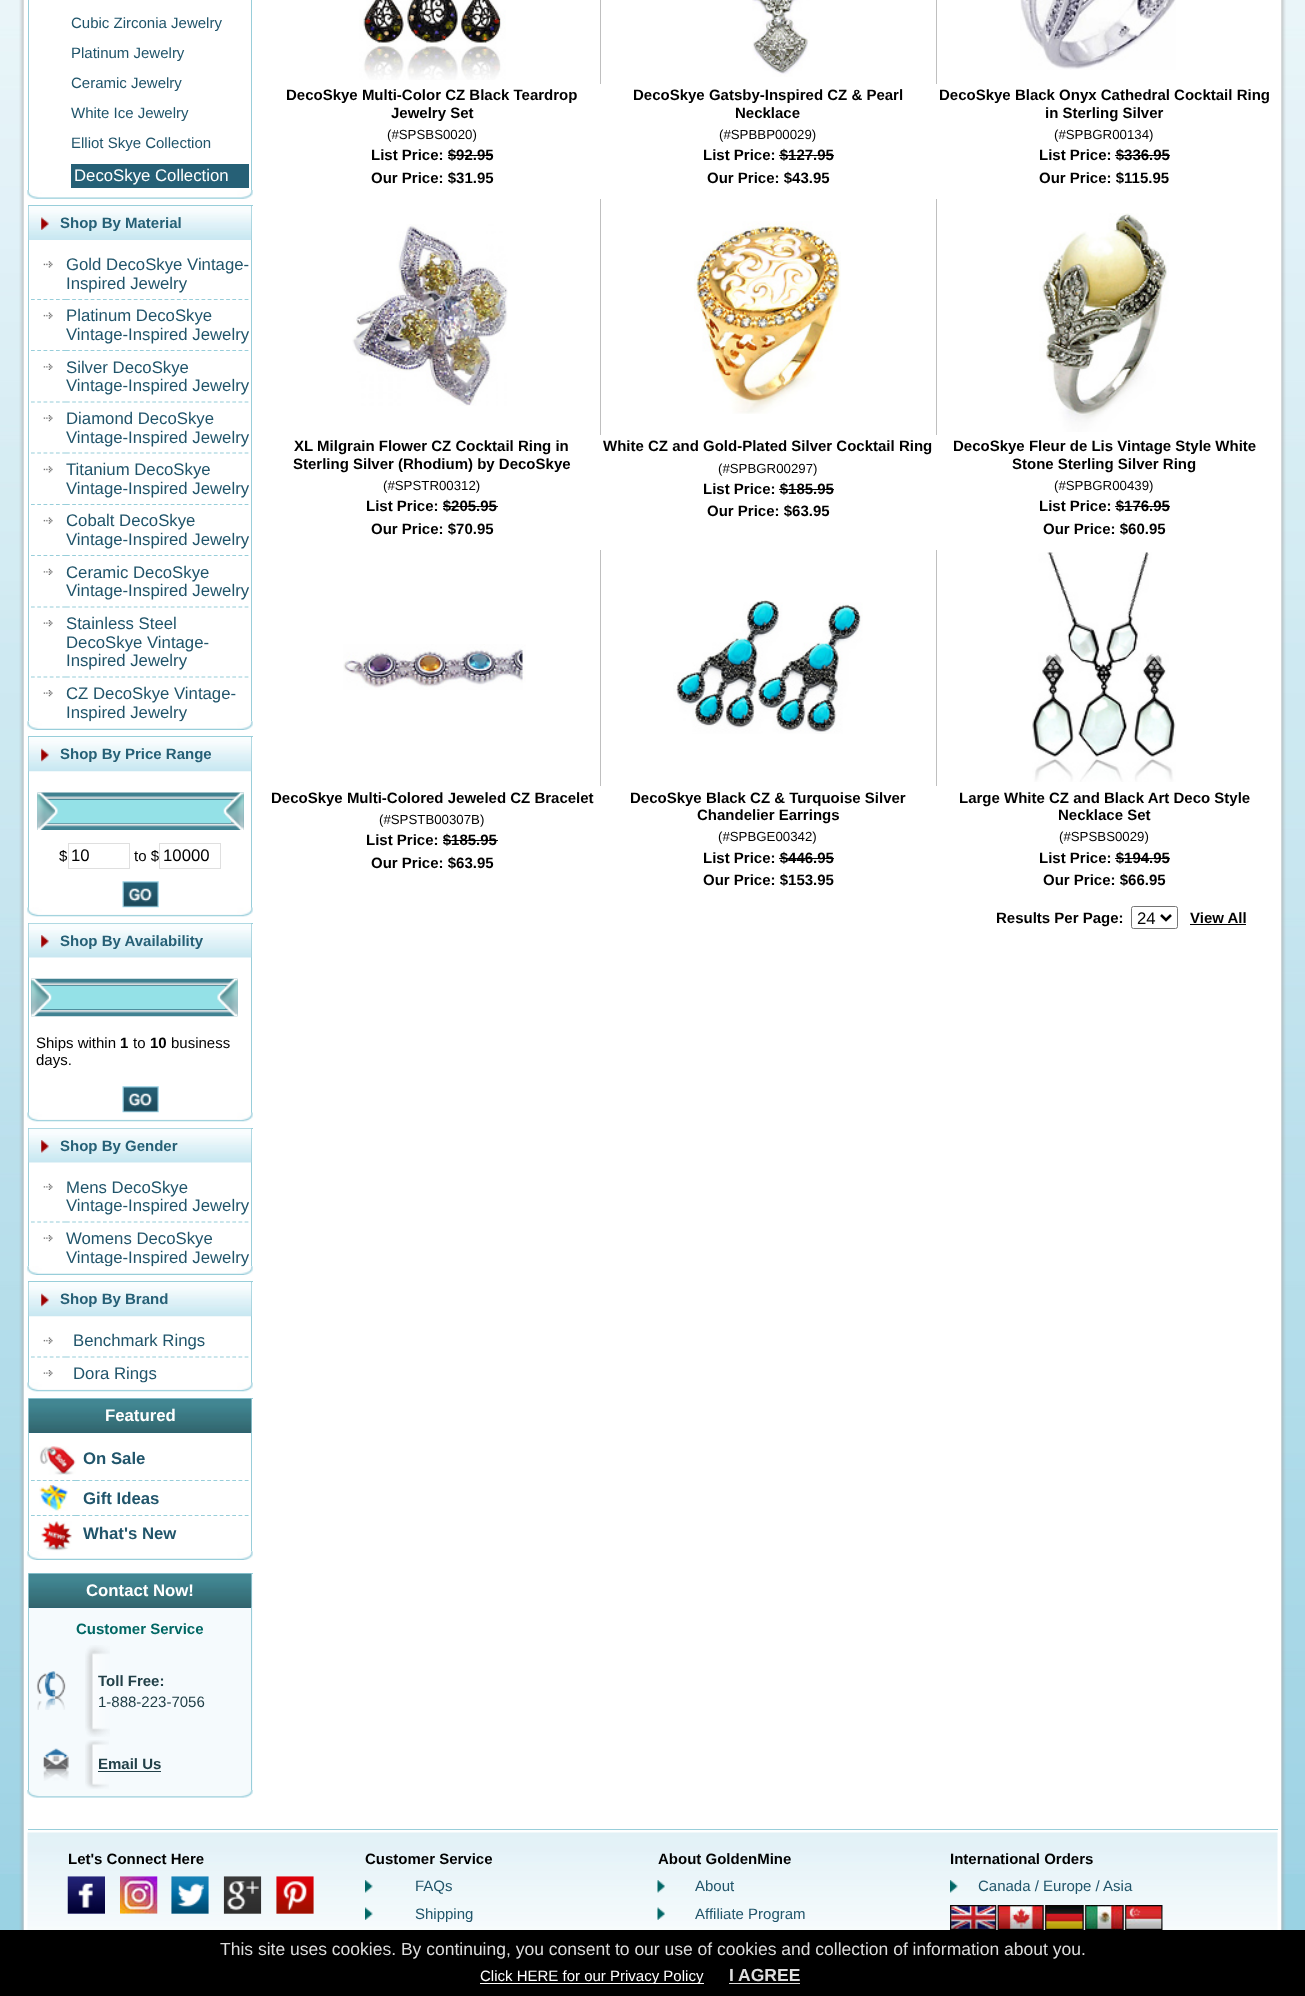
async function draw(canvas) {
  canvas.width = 1305;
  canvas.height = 1996;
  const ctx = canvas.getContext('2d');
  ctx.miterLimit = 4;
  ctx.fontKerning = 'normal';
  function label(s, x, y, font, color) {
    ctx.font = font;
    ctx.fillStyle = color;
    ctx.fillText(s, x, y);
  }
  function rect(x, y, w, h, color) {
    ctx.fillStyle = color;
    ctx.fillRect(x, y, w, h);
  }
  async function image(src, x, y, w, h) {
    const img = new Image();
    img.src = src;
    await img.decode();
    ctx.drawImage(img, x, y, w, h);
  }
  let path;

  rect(0, 0, 1305, 1996, '#9ad2e3');
  await image('assets/img1.png', 0, 0, 1305, 1874);
  await image('assets/img2.png', 19, 0, 6, 1930);
  rect(25, 0, 1255, 1930, '#fff');
  rect(251, 0, 1, 190, '#98ceda');
  rect(28, 0, 1, 190, '#98ceda');
  label('Cubic Zirconia Jewelry', 71, 28, '15px Liberation Sans', '#21556b');
  label('Platinum Jewelry', 71, 58, '15px Liberation Sans', '#21556b');
  label('Ceramic Jewelry', 71, 88, '15px Liberation Sans', '#21556b');
  label('White Ice Jewelry', 71, 118, '15px Liberation Sans', '#21556b');
  label('Elliot Skye Collection', 71, 148, '15px Liberation Sans', '#21556b');
  rect(71, 164, 178, 24, '#266076');
  label('DecoSkye Collection', 74, 181, '16.75px Liberation Sans', '#fff');
  await image('assets/img3.png', 27, 190, 226, 9);
  rect(28, 205, 225, 1, '#98ceda');
  rect(251, 205, 1, 516, '#98ceda');
  rect(28, 205, 1, 516, '#98ceda');
  await image('assets/img4.png', 28, 206, 224, 34);
  await image('assets/img5.png', 41, 217, 8, 13);
  label('Shop By Material', 60, 228, 'bold 15px Liberation Sans', '#266076');
  path = new Path2D('M31 299.5H66');
  ctx.strokeStyle = '#98ceda';
  ctx.lineWidth = 1.2;
  ctx.setLineDash([3.75, 2.5]);
  ctx.stroke(path);
  await image('assets/img6.png', 43, 261, 10, 7);
  path = new Path2D('M66 299.5H249');
  ctx.setLineDash([3.75, 2.41]);
  ctx.stroke(path);
  label('Gold DecoSkye Vintage-', 66, 270, '16.75px Liberation Sans', '#21556b');
  label('Inspired Jewelry', 66, 289, '16.75px Liberation Sans', '#21556b');
  path = new Path2D('M31 350.5H66');
  ctx.setLineDash([3.75, 2.5]);
  ctx.stroke(path);
  await image('assets/img7.png', 43, 312, 10, 7);
  path = new Path2D('M66 350.5H249');
  ctx.setLineDash([3.75, 2.41]);
  ctx.stroke(path);
  label('Platinum DecoSkye', 66, 321, '16.75px Liberation Sans', '#21556b');
  label('Vintage-Inspired Jewelry', 66, 340, '16.75px Liberation Sans', '#21556b');
  path = new Path2D('M31 402H66');
  ctx.setLineDash([3.75, 2.5]);
  ctx.stroke(path);
  await image('assets/img8.png', 43, 363, 10, 7);
  path = new Path2D('M66 402H249');
  ctx.setLineDash([3.75, 2.41]);
  ctx.stroke(path);
  label('Silver DecoSkye', 66, 373, '16.75px Liberation Sans', '#21556b');
  label('Vintage-Inspired Jewelry', 66, 391, '16.75px Liberation Sans', '#21556b');
  path = new Path2D('M31 453H66');
  ctx.setLineDash([3.75, 2.5]);
  ctx.stroke(path);
  await image('assets/img9.png', 43, 415, 10, 7);
  path = new Path2D('M66 453H249');
  ctx.setLineDash([3.75, 2.41]);
  ctx.stroke(path);
  label('Diamond DecoSkye', 66, 424, '16.75px Liberation Sans', '#21556b');
  label('Vintage-Inspired Jewelry', 66, 443, '16.75px Liberation Sans', '#21556b');
  path = new Path2D('M31 504.5H66');
  ctx.setLineDash([3.75, 2.5]);
  ctx.stroke(path);
  await image('assets/img6.png', 43, 466, 10, 7);
  path = new Path2D('M66 504.5H249');
  ctx.setLineDash([3.75, 2.41]);
  ctx.stroke(path);
  label('Titanium DecoSkye', 66, 475, '16.75px Liberation Sans', '#21556b');
  label('Vintage-Inspired Jewelry', 66, 494, '16.75px Liberation Sans', '#21556b');
  path = new Path2D('M31 555.5H66');
  ctx.setLineDash([3.75, 2.5]);
  ctx.stroke(path);
  await image('assets/img7.png', 43, 517, 10, 7);
  path = new Path2D('M66 555.5H249');
  ctx.setLineDash([3.75, 2.41]);
  ctx.stroke(path);
  label('Cobalt DecoSkye', 66, 526, '16.75px Liberation Sans', '#21556b');
  label('Vintage-Inspired Jewelry', 66, 545, '16.75px Liberation Sans', '#21556b');
  path = new Path2D('M31 607H66');
  ctx.setLineDash([3.75, 2.5]);
  ctx.stroke(path);
  await image('assets/img8.png', 43, 568, 10, 7);
  path = new Path2D('M66 607H249');
  ctx.setLineDash([3.75, 2.41]);
  ctx.stroke(path);
  label('Ceramic DecoSkye', 66, 578, '16.75px Liberation Sans', '#21556b');
  label('Vintage-Inspired Jewelry', 66, 596, '16.75px Liberation Sans', '#21556b');
  path = new Path2D('M31 677H66');
  ctx.setLineDash([3.75, 2.5]);
  ctx.stroke(path);
  await image('assets/img9.png', 43, 620, 10, 7);
  path = new Path2D('M66 677H249');
  ctx.setLineDash([3.75, 2.41]);
  ctx.stroke(path);
  label('Stainless Steel', 66, 629, '16.75px Liberation Sans', '#21556b');
  label('DecoSkye Vintage-', 66, 648, '16.75px Liberation Sans', '#21556b');
  label('Inspired Jewelry', 66, 666, '16.75px Liberation Sans', '#21556b');
  await image('assets/img9.png', 43, 690, 10, 7);
  label('CZ DecoSkye Vintage-', 66, 699, '16.75px Liberation Sans', '#21556b');
  label('Inspired Jewelry', 66, 718, '16.75px Liberation Sans', '#21556b');
  await image('assets/img10.png', 27, 721, 226, 9);
  rect(28, 736, 225, 1, '#98ceda');
  rect(251, 736, 1, 172, '#98ceda');
  rect(28, 736, 1, 172, '#98ceda');
  await image('assets/img11.png', 28, 737, 224, 35);
  await image('assets/img12.png', 41, 748, 8, 14);
  label('Shop By Price Range', 60, 759, 'bold 15px Liberation Sans', '#266076');
  await image('assets/img13.png', 37, 792, 207, 38);
  rect(46, 800, 185, 23, '#94e1e7');
  await image('assets/img14.png', 37, 792, 21, 38);
  await image('assets/img15.png', 223, 792, 21, 38);
  label('$', 59, 861, '15px Liberation Sans', '#000');
  ctx.strokeStyle = '#dfdfdf';
  ctx.lineWidth = 1;
  ctx.setLineDash([]);
  ctx.strokeRect(68.5, 843.5, 61, 25);
  label('10', 71, 861, '16.75px Liberation Sans', '#000');
  label('to $', 134, 861, '15px Liberation Sans', '#000');
  ctx.strokeRect(159.5, 843.5, 61, 25);
  label('10000', 163, 861, '16.75px Liberation Sans', '#000');
  await image('assets/img16.png', 122, 881, 37, 27);
  await image('assets/img17.png', 27, 907, 226, 10);
  rect(28, 923, 225, 1, '#98ceda');
  rect(251, 923, 1, 190, '#98ceda');
  rect(28, 923, 1, 190, '#98ceda');
  await image('assets/img18.png', 28, 923, 224, 35);
  await image('assets/img19.png', 41, 935, 8, 13);
  label('Shop By Availability', 60, 946, 'bold 15px Liberation Sans', '#266076');
  await image('assets/img20.png', 31, 978, 207, 39);
  rect(40, 986, 185, 23, '#94e1e7');
  await image('assets/img21.png', 31, 978, 21, 39);
  await image('assets/img22.png', 217, 978, 21, 39);
  label('Ships within', 36, 1048, '15px Liberation Sans', '#000');
  label('1', 120, 1048, 'bold 15px Liberation Sans', '#000');
  label('to', 133, 1048, '15px Liberation Sans', '#000');
  label('10', 150, 1048, 'bold 15px Liberation Sans', '#000');
  label('business', 171, 1048, '15px Liberation Sans', '#000');
  label('days.', 36, 1065, '15px Liberation Sans', '#000');
  await image('assets/img16.png', 122, 1086, 37, 27);
  await image('assets/img17.png', 27, 1112, 226, 10);
  rect(28, 1128, 225, 1, '#98ceda');
  rect(251, 1128, 1, 138, '#98ceda');
  rect(28, 1128, 1, 138, '#98ceda');
  await image('assets/img23.png', 28, 1128, 224, 35);
  await image('assets/img19.png', 41, 1140, 8, 13);
  label('Shop By Gender', 60, 1151, 'bold 15px Liberation Sans', '#266076');
  path = new Path2D('M31 1222H66');
  ctx.strokeStyle = '#98ceda';
  ctx.lineWidth = 1.2;
  ctx.setLineDash([3.75, 2.5]);
  ctx.stroke(path);
  await image('assets/img8.png', 43, 1183, 10, 7);
  path = new Path2D('M66 1222H249');
  ctx.setLineDash([3.75, 2.41]);
  ctx.stroke(path);
  label('Mens DecoSkye', 66, 1193, '16.75px Liberation Sans', '#21556b');
  label('Vintage-Inspired Jewelry', 66, 1211, '16.75px Liberation Sans', '#21556b');
  await image('assets/img9.png', 43, 1235, 10, 7);
  label('Womens DecoSkye', 66, 1244, '16.75px Liberation Sans', '#21556b');
  label('Vintage-Inspired Jewelry', 66, 1263, '16.75px Liberation Sans', '#21556b');
  await image('assets/img24.png', 27, 1266, 226, 9);
  rect(28, 1281, 225, 1, '#98ceda');
  rect(251, 1281, 1, 102, '#98ceda');
  rect(28, 1281, 1, 102, '#98ceda');
  await image('assets/img25.png', 28, 1282, 224, 35);
  await image('assets/img12.png', 41, 1293, 8, 14);
  label('Shop By Brand', 60, 1304, 'bold 15px Liberation Sans', '#266076');
  path = new Path2D('M31 1357H66');
  ctx.setLineDash([3.75, 2.5]);
  ctx.stroke(path);
  await image('assets/img7.png', 43, 1337, 10, 7);
  path = new Path2D('M66 1357H249');
  ctx.setLineDash([3.75, 2.41]);
  ctx.stroke(path);
  label('Benchmark Rings', 73, 1346, '16.75px Liberation Sans', '#21556b');
  await image('assets/img9.png', 43, 1370, 10, 7);
  label('Dora Rings', 73, 1379, '16.75px Liberation Sans', '#21556b');
  await image('assets/img26.png', 27, 1382, 226, 10);
  rect(28, 1398, 225, 1, '#98ceda');
  rect(251, 1398, 1, 153, '#98ceda');
  rect(28, 1398, 1, 153, '#98ceda');
  rect(29, 1432, 222, 1, '#266076');
  await image('assets/img27.png', 28, 1398, 224, 35);
  label('Featured', 105, 1421, 'bold 16.75px Liberation Sans', '#fff');
  path = new Path2D('M31 1480.5H76');
  ctx.setLineDash([3.75, 2.14]);
  ctx.stroke(path);
  await image('assets/img28.png', 39, 1446, 37, 29);
  path = new Path2D('M76 1480.5H249');
  ctx.setLineDash([3.75, 2.5]);
  ctx.stroke(path);
  label('On Sale', 83, 1464, 'bold 16.75px Liberation Sans', '#21556b');
  path = new Path2D('M31 1515.5H76');
  ctx.setLineDash([3.75, 2.14]);
  ctx.stroke(path);
  await image('assets/img29.png', 39, 1485, 29, 26);
  path = new Path2D('M76 1515.5H249');
  ctx.setLineDash([3.75, 2.5]);
  ctx.stroke(path);
  label('Gift Ideas', 83, 1504, 'bold 16.75px Liberation Sans', '#21556b');
  await image('assets/img30.png', 40, 1521, 32, 30);
  label('What\'s New', 83, 1539, 'bold 16.75px Liberation Sans', '#21556b');
  await image('assets/img31.png', 27, 1551, 226, 9);
  rect(29, 1574, 224, 216, '#f5fafd');
  rect(28, 1573, 225, 1, '#98ceda');
  rect(251, 1573, 1, 217, '#98ceda');
  rect(28, 1573, 1, 217, '#98ceda');
  rect(29, 1607, 222, 1, '#266076');
  await image('assets/img32.png', 28, 1573, 224, 35);
  label('Contact Now!', 86, 1596, 'bold 16.75px Liberation Sans', '#fff');
  label('Customer Service', 76, 1634, 'bold 15px Liberation Sans', '#006764');
  await image('assets/img33.png', 36, 1671, 30, 39);
  await image('assets/img34.png', 85, 1645, 25, 92);
  label('Toll Free:', 98, 1686, 'bold 15px Liberation Sans', '#224048');
  label('1-888-223-7056', 98, 1707, '15px Liberation Sans', '#224048');
  await image('assets/img35.png', 43, 1748, 26, 33);
  await image('assets/img36.png', 85, 1740, 24, 49);
  label('Email Us', 98, 1769, 'bold 15px Liberation Sans', '#224048');
  rect(98, 1771, 63, 1, '#224048');
  await image('assets/img37.png', 27, 1790, 226, 8);
  await image('assets/img38.png', 359, 0, 147, 80);
  label('DecoSkye Multi-Color CZ Black Teardrop', 286, 100, 'bold 15px Liberation Sans', '#000');
  label('Jewelry Set', 391, 118, 'bold 15px Liberation Sans', '#000');
  label('(#SPSBS0020)', 387, 139, '13.25px Liberation Sans', '#000');
  label('List Price: $92.95', 371, 160, 'bold 15px Liberation Sans', '#000');
  rect(448, 155, 45, 1, '#000');
  label('Our Price: $31.95', 371, 183, 'bold 15px Liberation Sans', '#000');
  rect(600, 0, 1, 84, '#bfbfbf');
  await image('assets/img39.png', 752, 0, 58, 77);
  label('DecoSkye Gatsby-Inspired CZ & Pearl', 633, 100, 'bold 15px Liberation Sans', '#000');
  label('Necklace', 735, 118, 'bold 15px Liberation Sans', '#000');
  label('(#SPBBP00029)', 719, 139, '13.25px Liberation Sans', '#000');
  label('List Price: $127.95', 703, 160, 'bold 15px Liberation Sans', '#000');
  rect(779, 155, 55, 1, '#000');
  label('Our Price: $43.95', 707, 183, 'bold 15px Liberation Sans', '#000');
  rect(936, 0, 1, 84, '#bfbfbf');
  await image('assets/img40.png', 1020, 0, 156, 70);
  label('DecoSkye Black Onyx Cathedral Cocktail Ring', 939, 100, 'bold 15px Liberation Sans', '#000');
  label('in Sterling Silver', 1045, 118, 'bold 15px Liberation Sans', '#000');
  label('(#SPBGR00134)', 1054, 139, '13.25px Liberation Sans', '#000');
  label('List Price: $336.95', 1039, 160, 'bold 15px Liberation Sans', '#000');
  rect(1115, 155, 55, 1, '#000');
  label('Our Price: $115.95', 1039, 183, 'bold 15px Liberation Sans', '#000');
  await image('assets/img41.png', 352, 224, 156, 182);
  label('XL Milgrain Flower CZ Cocktail Ring in', 294, 451, 'bold 15px Liberation Sans', '#000');
  label('Sterling Silver (Rhodium) by DecoSkye', 293, 469, 'bold 15px Liberation Sans', '#000');
  label('(#SPSTR00312)', 383, 490, '13.25px Liberation Sans', '#000');
  label('List Price: $205.95', 366, 511, 'bold 15px Liberation Sans', '#000');
  rect(443, 506, 55, 1, '#000');
  label('Our Price: $70.95', 371, 534, 'bold 15px Liberation Sans', '#000');
  rect(600, 199, 1, 236, '#bfbfbf');
  await image('assets/img42.png', 694, 221, 147, 193);
  label('White CZ and Gold-Plated Silver Cocktail Ring', 603, 451, 'bold 15px Liberation Sans', '#000');
  label('(#SPBGR00297)', 718, 473, '13.25px Liberation Sans', '#000');
  label('List Price: $185.95', 703, 494, 'bold 15px Liberation Sans', '#000');
  rect(779, 489, 55, 1, '#000');
  label('Our Price: $63.95', 707, 516, 'bold 15px Liberation Sans', '#000');
  rect(936, 199, 1, 236, '#bfbfbf');
  await image('assets/img43.png', 1039, 213, 130, 219);
  label('DecoSkye Fleur de Lis Vintage Style White', 953, 451, 'bold 15px Liberation Sans', '#000');
  label('Stone Sterling Silver Ring', 1012, 469, 'bold 15px Liberation Sans', '#000');
  label('(#SPBGR00439)', 1054, 490, '13.25px Liberation Sans', '#000');
  label('List Price: $176.95', 1039, 511, 'bold 15px Liberation Sans', '#000');
  rect(1115, 506, 55, 1, '#000');
  label('Our Price: $60.95', 1043, 534, 'bold 15px Liberation Sans', '#000');
  await image('assets/img44.png', 343, 644, 183, 46);
  label('DecoSkye Multi-Colored Jeweled CZ Bracelet', 271, 803, 'bold 15px Liberation Sans', '#000');
  label('(#SPSTB00307B)', 379, 824, '13.25px Liberation Sans', '#000');
  label('List Price: $185.95', 366, 845, 'bold 15px Liberation Sans', '#000');
  rect(443, 840, 55, 1, '#000');
  label('Our Price: $63.95', 371, 868, 'bold 15px Liberation Sans', '#000');
  rect(600, 550, 1, 236, '#bfbfbf');
  await image('assets/img45.png', 673, 600, 190, 134);
  label('DecoSkye Black CZ & Turquoise Silver', 630, 803, 'bold 15px Liberation Sans', '#000');
  label('Chandelier Earrings', 697, 820, 'bold 15px Liberation Sans', '#000');
  label('(#SPBGE00342)', 718, 841, '13.25px Liberation Sans', '#000');
  label('List Price: $446.95', 703, 863, 'bold 15px Liberation Sans', '#000');
  rect(779, 858, 55, 1, '#000');
  label('Our Price: $153.95', 703, 885, 'bold 15px Liberation Sans', '#000');
  rect(936, 550, 1, 236, '#bfbfbf');
  await image('assets/img46.png', 1032, 552, 144, 230);
  label('Large White CZ and Black Art Deco Style', 959, 803, 'bold 15px Liberation Sans', '#000');
  label('Necklace Set', 1058, 820, 'bold 15px Liberation Sans', '#000');
  label('(#SPSBS0029)', 1059, 841, '13.25px Liberation Sans', '#000');
  label('List Price: $194.95', 1039, 863, 'bold 15px Liberation Sans', '#000');
  rect(1115, 858, 55, 1, '#000');
  label('Our Price: $66.95', 1043, 885, 'bold 15px Liberation Sans', '#000');
  label('Results Per Page:', 996, 923, 'bold 15px Liberation Sans', '#000');
  ctx.beginPath();
  ctx.roundRect(1131.5, 906.5, 46, 22, 2);
  ctx.strokeStyle = '#767676';
  ctx.lineWidth = 1;
  ctx.setLineDash([]);
  ctx.stroke();
  path = new Path2D('M1161 915L1166 920L1171 915');
  ctx.strokeStyle = '#000';
  ctx.lineWidth = 2.5;
  ctx.stroke(path);
  label('24', 1137, 924, '16.75px Liberation Sans', '#000');
  label('View All', 1190, 923, 'bold 15px Liberation Sans', '#000');
  rect(1190, 924, 56, 1, '#000');
  rect(28, 1829, 1250, 1, '#98ceda');
  await image('assets/img47.png', 27, 1832, 1251, 98);
  label('Let\'s Connect Here', 68, 1864, 'bold 15px Liberation Sans', '#000');
  await image('assets/img48.png', 67, 1876, 38, 38);
  await image('assets/img49.png', 120, 1876, 38, 38);
  await image('assets/img50.png', 171, 1876, 38, 38);
  await image('assets/img51.png', 223, 1876, 39, 38);
  await image('assets/img52.png', 276, 1876, 38, 38);
  label('Customer Service', 365, 1864, 'bold 15px Liberation Sans', '#000');
  await image('assets/img53.png', 365, 1880, 8, 13);
  label('FAQs', 415, 1891, '15px Liberation Sans', '#21556b');
  await image('assets/img54.png', 365, 1907, 8, 13);
  label('Shipping', 415, 1919, '15px Liberation Sans', '#21556b');
  label('About GoldenMine', 658, 1864, 'bold 15px Liberation Sans', '#000');
  await image('assets/img55.png', 657, 1880, 8, 13);
  label('About', 695, 1891, '15px Liberation Sans', '#21556b');
  await image('assets/img56.png', 657, 1907, 8, 13);
  label('Affiliate Program', 695, 1919, '15px Liberation Sans', '#21556b');
  label('International Orders', 950, 1864, 'bold 15px Liberation Sans', '#000');
  await image('assets/img57.png', 950, 1880, 8, 13);
  label('Canada / Europe / Asia', 978, 1891, '15px Liberation Sans', '#21556b');
  await image('assets/img58.png', 950, 1905, 213, 25);
  await image('assets/img59.png', 1280, 0, 6, 1930);
  rect(0, 1930, 1305, 66, '#000');
  label('This site uses cookies. By continuing, you consent to our use of cookies and collection of information about you.', 220, 1955, '17.5px Liberation Sans', '#ddd');
  rect(480, 1983, 224, 1, '#fff');
  label('Click HERE for our Privacy Policy', 480, 1981, '15px Liberation Sans', '#fff');
  label('I AGREE', 729, 1981, 'bold 17.5px Liberation Sans', '#ddd');
  rect(729, 1983, 71, 1, '#ddd');
}

draw(document.querySelector('canvas'));
